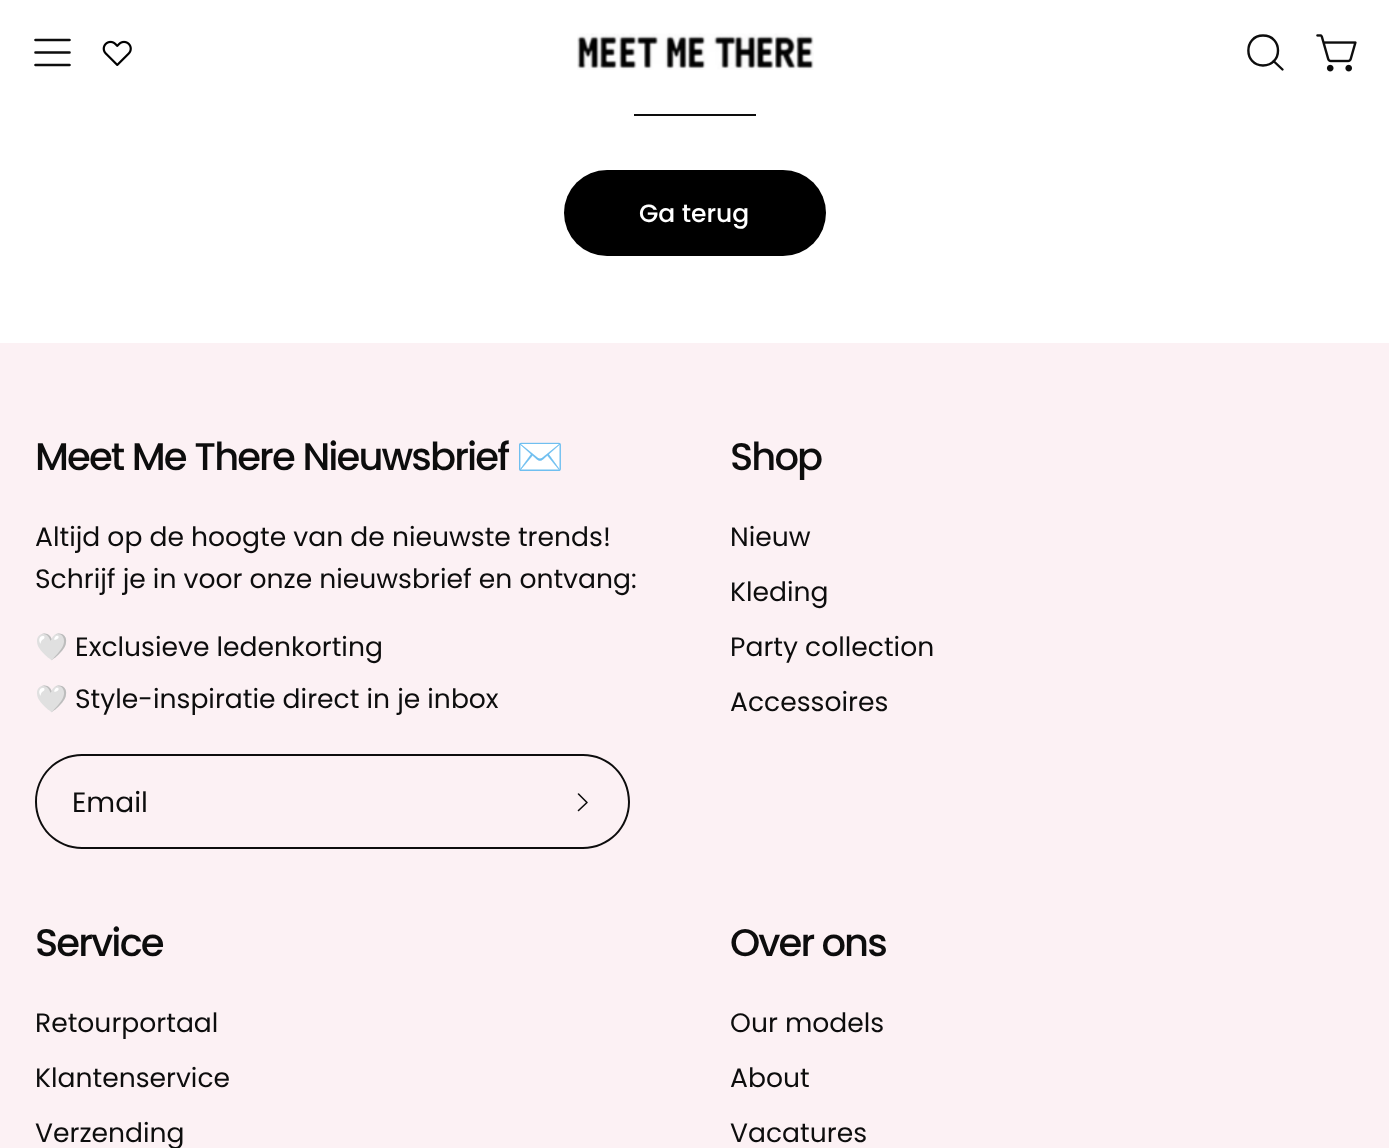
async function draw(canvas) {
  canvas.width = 1389;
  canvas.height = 1148;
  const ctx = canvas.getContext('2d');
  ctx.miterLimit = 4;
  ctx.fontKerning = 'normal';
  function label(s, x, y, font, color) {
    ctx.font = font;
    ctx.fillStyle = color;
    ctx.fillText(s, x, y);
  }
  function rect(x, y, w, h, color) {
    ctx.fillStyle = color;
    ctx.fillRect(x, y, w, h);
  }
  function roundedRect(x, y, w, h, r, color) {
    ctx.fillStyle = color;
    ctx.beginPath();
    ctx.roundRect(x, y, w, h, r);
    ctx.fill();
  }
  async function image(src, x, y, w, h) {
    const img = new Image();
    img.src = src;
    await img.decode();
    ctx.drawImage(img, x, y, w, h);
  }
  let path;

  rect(0, 0, 1389, 1148, '#fff');
  path = new Path2D('M35.5 52.5H69.5M35.5 40H69.5M35.5 65H69.5');
  ctx.strokeStyle = '#0d0d0d';
  ctx.lineWidth = 2.6;
  ctx.lineCap = 'round';
  ctx.lineJoin = 'round';
  ctx.stroke(path);
  await image('assets/img1.png', 102, 40, 30, 26);
  await image('assets/img2.png', 577, 33, 237, 37);
  path = new Path2D('M1263 65.5C1283 65.5 1283 35.5 1263 35.5C1243.5 35.5 1243.5 65.5 1263 65.5ZM1273.5 61L1282.5 69.5');
  ctx.lineWidth = 2.4;
  ctx.stroke(path);
  await image('assets/img3.png', 1316, 34, 41, 38);
  rect(634, 114, 122, 2, '#0d0d0d');
  roundedRect(564, 170, 262, 86, 43, '#000');
  label('Ga terug', 639, 222, '500 25px Poppins', '#fff');
  rect(0, 343, 1389, 805, '#fcf1f4');
  ctx.letterSpacing = '-1.9px';
  ctx.wordSpacing = '0.5px';
  label('Meet Me There Nieuwsbrief', 35, 470, '500 38.5px Poppins', '#0d0d0d');
  ctx.wordSpacing = '0px';
  label('✉️', 516, 470, '38.5px Noto Color Emoji', '#0d0d0d');
  ctx.letterSpacing = '0px';
  label('Altijd op de hoogte van de nieuwste trends!', 35, 546, '26.6px Poppins', '#0d0d0d');
  label('Schrijf je in voor onze nieuwsbrief en ontvang:', 35, 588, '26.6px Poppins', '#0d0d0d');
  label('🤍', 35, 656, '26.6px Noto Color Emoji', '#0d0d0d');
  label('Exclusieve ledenkorting', 75, 656, '26.6px Poppins', '#0d0d0d');
  label('🤍', 35, 708, '26.6px Noto Color Emoji', '#0d0d0d');
  label('Style-inspiratie direct in je inbox', 75, 708, '26.6px Poppins', '#0d0d0d');
  path = new Path2D('M82 754H536V849H82C56 849 35 828 35 802C35 775 56 754 82 754ZM82 756H536V847H82C57 847 37 827 37 802C37 776 57 756 82 756Z');
  ctx.fill(path, 'evenodd');
  label('Email', 72, 812, '28px Poppins', '#0d0d0d');
  path = new Path2D('M536 754H583C609 754 630 775 630 802C630 828 609 849 583 849H536ZM536 756H583C608 756 628 776 628 802C628 827 608 847 583 847H536Z');
  ctx.fill(path, 'evenodd');
  path = new Path2D('M578.5 794L587 802.5L578.5 810.5');
  ctx.lineWidth = 1.6;
  ctx.stroke(path);
  ctx.letterSpacing = '-1.9px';
  label('Shop', 730, 470, '500 38.5px Poppins', '#0d0d0d');
  ctx.letterSpacing = '0px';
  label('Nieuw', 730, 546, '26.6px Poppins', '#0d0d0d');
  label('Kleding', 730, 601, '26.6px Poppins', '#0d0d0d');
  label('Party collection', 730, 656, '26.6px Poppins', '#0d0d0d');
  label('Accessoires', 730, 711, '26.6px Poppins', '#0d0d0d');
  ctx.letterSpacing = '-1.9px';
  label('Service', 35, 956, '500 38.5px Poppins', '#0d0d0d');
  ctx.letterSpacing = '0px';
  label('Retourportaal', 35, 1032, '26.6px Poppins', '#0d0d0d');
  label('Klantenservice', 35, 1087, '26.6px Poppins', '#0d0d0d');
  label('Verzending', 35, 1142, '26.6px Poppins', '#0d0d0d');
  ctx.letterSpacing = '-1.9px';
  label('Over ons', 730, 956, '500 38.5px Poppins', '#0d0d0d');
  ctx.letterSpacing = '0px';
  label('Our models', 730, 1032, '26.6px Poppins', '#0d0d0d');
  label('About', 730, 1087, '26.6px Poppins', '#0d0d0d');
  label('Vacatures', 730, 1142, '26.6px Poppins', '#0d0d0d');
}

draw(document.querySelector('canvas'));
